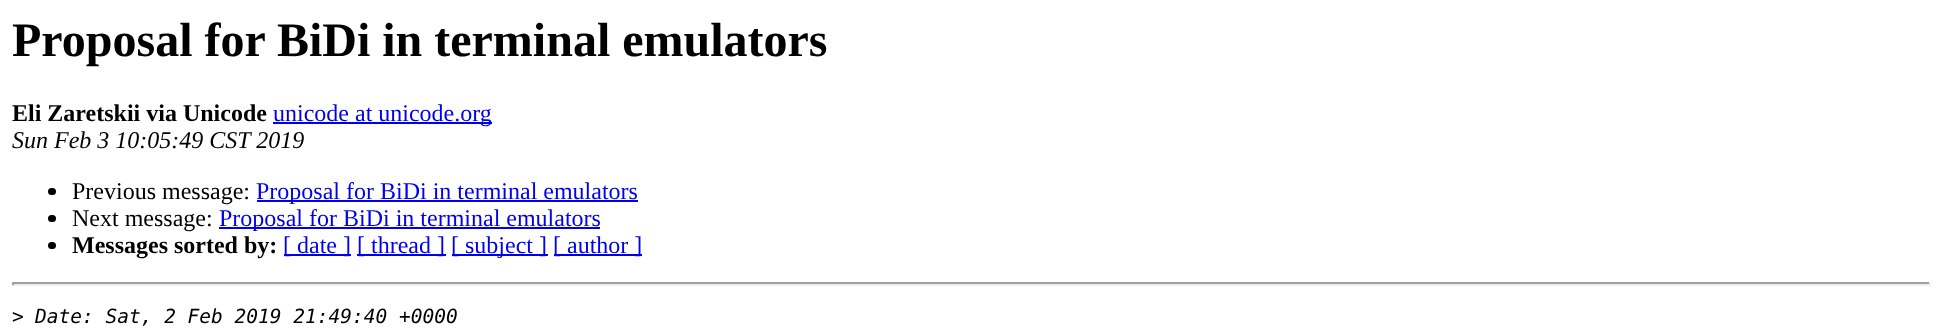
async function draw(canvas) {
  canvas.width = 1942;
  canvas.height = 330;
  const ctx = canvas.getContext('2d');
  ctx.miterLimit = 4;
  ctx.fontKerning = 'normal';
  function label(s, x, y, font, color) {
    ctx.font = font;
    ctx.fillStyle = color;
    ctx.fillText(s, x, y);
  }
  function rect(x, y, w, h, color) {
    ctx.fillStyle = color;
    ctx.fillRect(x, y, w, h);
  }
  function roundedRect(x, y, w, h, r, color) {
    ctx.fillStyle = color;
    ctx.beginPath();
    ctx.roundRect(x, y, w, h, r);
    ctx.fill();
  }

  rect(0, 0, 1942, 330, '#fff');
  label('Proposal for BiDi in terminal emulators', 12, 56, 'bold 48px Liberation Serif', '#000');
  label('Eli Zaretskii via Unicode', 12, 121, 'bold 24px Liberation Serif', '#000');
  rect(273, 122, 219, 2, '#00e');
  label('unicode at unicode.org', 273, 121, '24px Liberation Serif', '#00e');
  label('Sun Feb 3 10:05:49 CST 2019', 12, 148, 'italic 24px Liberation Serif', '#000');
  roundedRect(48, 188, 8, 7, 3.5, '#000');
  label('Previous message:', 72, 199, '24px Liberation Serif', '#000');
  rect(257, 200, 381, 2, '#00e');
  label('Proposal for BiDi in terminal emulators', 256, 199, '24px Liberation Serif', '#00e');
  roundedRect(48, 215, 8, 7, 3.5, '#000');
  label('Next message:', 72, 226, '24px Liberation Serif', '#000');
  rect(219, 227, 381, 2, '#00e');
  label('Proposal for BiDi in terminal emulators', 219, 226, '24px Liberation Serif', '#00e');
  roundedRect(48, 242, 8, 7, 3.5, '#000');
  label('Messages sorted by:', 72, 253, 'bold 24px Liberation Serif', '#000');
  rect(284, 254, 67, 2, '#00e');
  label('[ date ]', 283, 253, '24px Liberation Serif', '#00e');
  rect(357, 254, 89, 2, '#00e');
  label('[ thread ]', 357, 253, '24px Liberation Serif', '#00e');
  rect(452, 254, 96, 2, '#00e');
  label('[ subject ]', 451, 253, '24px Liberation Serif', '#00e');
  rect(554, 254, 88, 2, '#00e');
  label('[ author ]', 553, 253, '24px Liberation Serif', '#00e');
  rect(12, 282, 1919, 2, '#9f9f9f');
  rect(1929, 282, 2, 3, '#eee');
  rect(12, 284, 1919, 2, '#eee');
  rect(12, 282, 2, 3, '#9f9f9f');
  label('>', 12, 323, '19.5px DejaVu Sans Mono', '#000');
  label('Date: Sat, 2 Feb 2019 21:49:40 +0000', 35, 323, 'italic 19.5px DejaVu Sans Mono', '#000');
}

draw(document.querySelector('canvas'));
